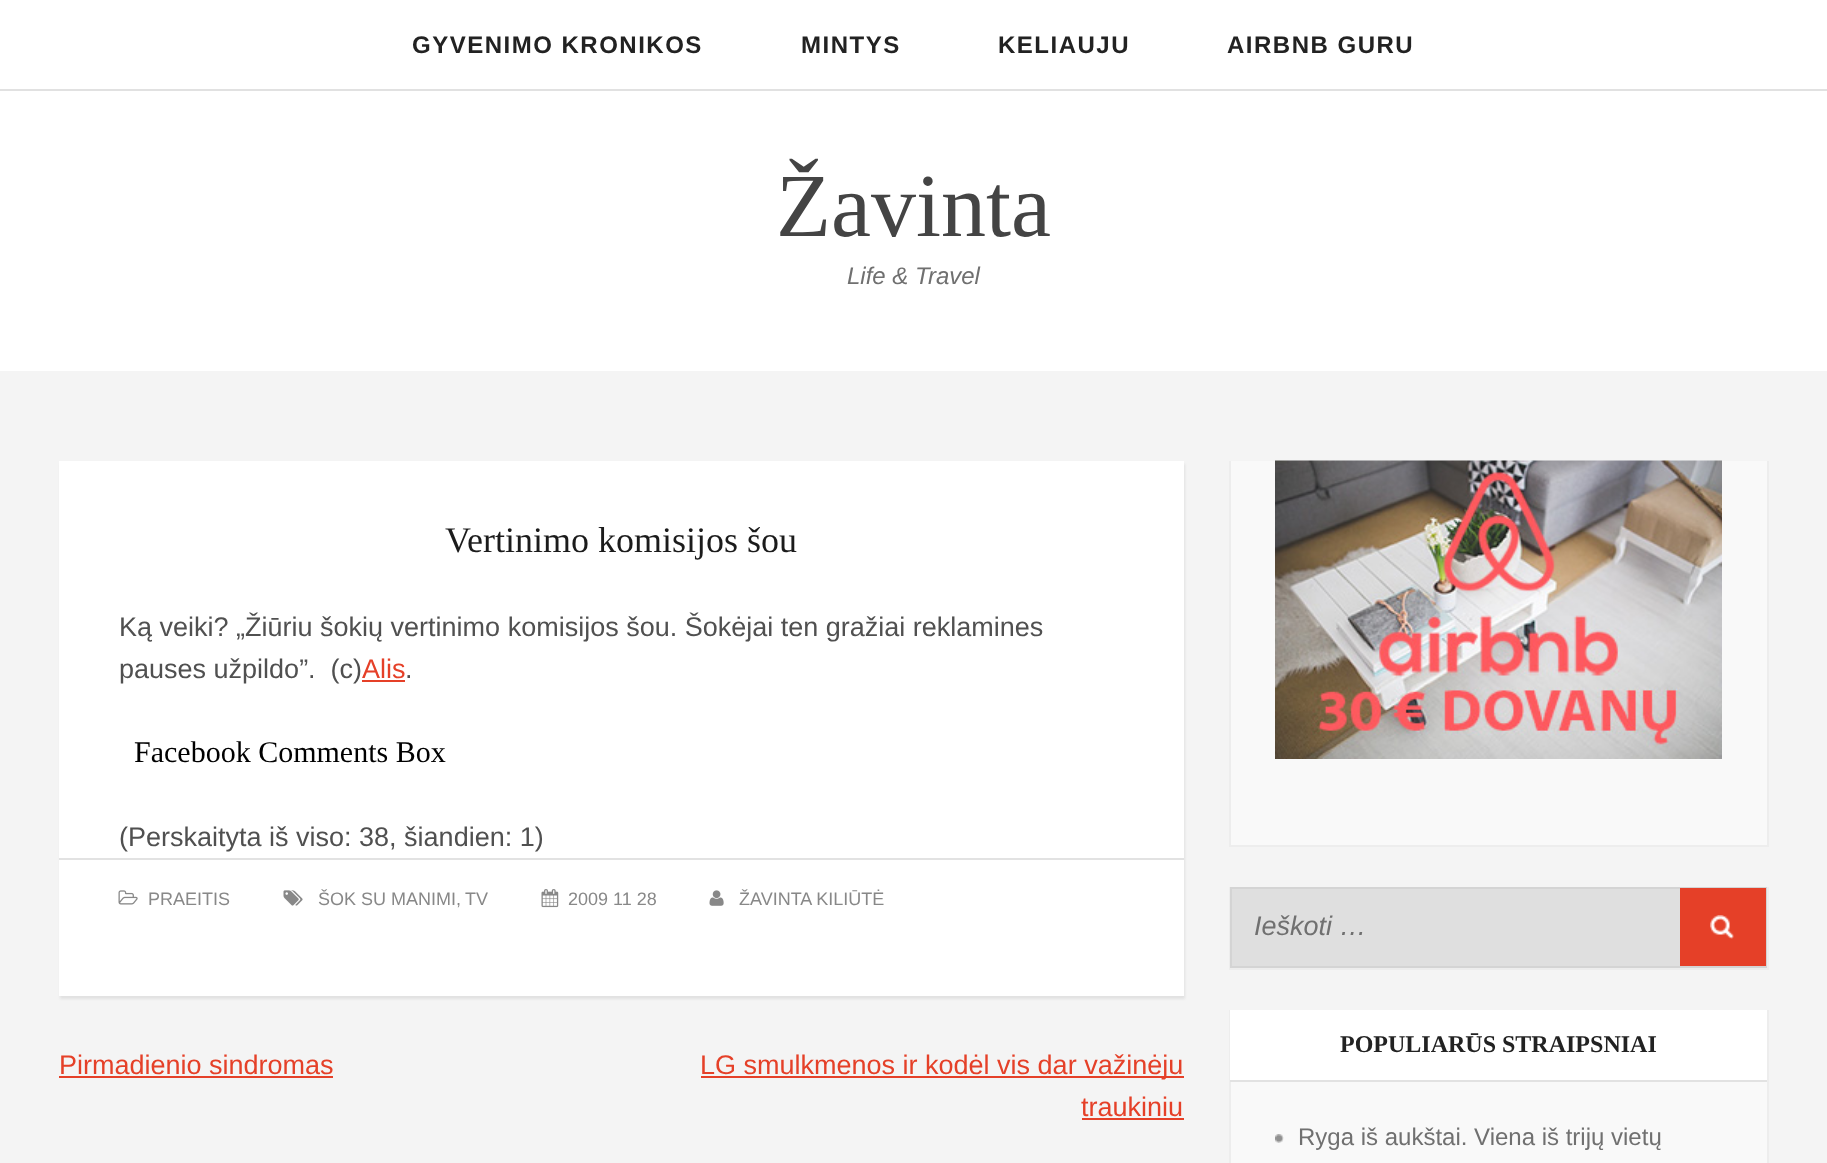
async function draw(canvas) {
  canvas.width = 1827;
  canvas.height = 1163;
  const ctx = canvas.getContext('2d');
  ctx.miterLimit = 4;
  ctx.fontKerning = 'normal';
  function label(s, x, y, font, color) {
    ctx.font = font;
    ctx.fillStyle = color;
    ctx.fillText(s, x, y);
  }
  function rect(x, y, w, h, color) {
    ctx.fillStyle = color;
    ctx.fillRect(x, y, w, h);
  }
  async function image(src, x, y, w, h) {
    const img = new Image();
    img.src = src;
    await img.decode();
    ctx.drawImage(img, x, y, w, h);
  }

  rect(0, 0, 1827, 1163, '#f4f4f4');
  rect(0, 0, 1827, 371, '#fff');
  rect(0, 89, 1827, 2, '#e1e1e1');
  ctx.letterSpacing = '1.5px';
  label('GYVENIMO KRONIKOS', 412, 53, 'bold 24px Liberation Sans', '#222');
  label('MINTYS', 801, 53, 'bold 24px Liberation Sans', '#222');
  label('KELIAUJU', 998, 53, 'bold 24px Liberation Sans', '#222');
  label('AIRBNB GURU', 1227, 53, 'bold 24px Liberation Sans', '#222');
  ctx.letterSpacing = '0px';
  label('Žavinta', 776, 236, '90px Liberation Serif', '#444');
  label('Life & Travel', 847, 284, 'italic 24px Liberation Sans', '#707070');
  ctx.fillStyle = '#e2e2e2';
  ctx.filter = 'blur(1px)';
  ctx.beginPath();
  ctx.rect(60, 464, 1125, 535);
  ctx.fill();
  ctx.filter = 'none';
  rect(59, 461, 1125, 535, '#fff');
  label('Vertinimo komisijos šou', 445, 552, '36px Liberation Serif', '#1b1b1b');
  label('Ką veiki? „Žiūriu šokių vertinimo komisijos šou. Šokėjai ten gražiai reklamines', 119, 636, '27px Liberation Sans', '#505050');
  label('pauses užpildo”.  (c)', 119, 678, '27px Liberation Sans', '#505050');
  label('Alis', 362, 678, '27px Liberation Sans', '#e54028');
  rect(362, 680, 43, 2, '#e54028');
  label('.', 405, 678, '27px Liberation Sans', '#505050');
  label('Facebook Comments Box', 134, 762, '30px Liberation Serif', '#000');
  label('(Perskaityta iš viso: 38, šiandien: 1)', 119, 846, '27px Liberation Sans', '#505050');
  rect(59, 858, 1125, 2, '#e2e2e2');
  await image('assets/img1.png', 118, 890, 20, 15);
  label('PRAEITIS', 148, 905, '18px Liberation Sans', '#888');
  await image('assets/img2.png', 283, 890, 20, 16);
  label('ŠOK SU MANIMI,', 318, 905, '18px Liberation Sans', '#888');
  label('TV', 465, 905, '18px Liberation Sans', '#888');
  await image('assets/img3.png', 541, 889, 18, 19);
  label('2009 11 28', 568, 905, '18px Liberation Sans', '#888');
  await image('assets/img4.png', 709, 890, 15, 16);
  label('ŽAVINTA KILIŪTĖ', 739, 905, '18px Liberation Sans', '#888');
  label('Pirmadienio sindromas', 59, 1074, '27px Liberation Sans', '#e54028');
  rect(59, 1076, 274, 2, '#e54028');
  rect(701, 1076, 483, 2, '#e54028');
  label('LG smulkmenos ir kodėl vis dar važinėju', 700, 1074, '27px Liberation Sans', '#e54028');
  label('traukiniu', 1081, 1116, '27px Liberation Sans', '#e54028');
  rect(1082, 1118, 102, 2, '#e54028');
  rect(1231, 461, 536, 384, '#f9f9f9');
  rect(1767, 461, 2, 385, '#ededed');
  rect(1229, 845, 540, 2, '#ededed');
  rect(1229, 461, 2, 385, '#ededed');
  await image('assets/img5.png', 1275, 460, 447, 299);
  rect(1767, 887, 2, 82, '#ededed');
  rect(1229, 968, 540, 2, '#ededed');
  rect(1229, 887, 2, 82, '#ededed');
  rect(1232, 889, 448, 77, '#dfdfdf');
  ctx.strokeStyle = '#d4d4d4';
  ctx.lineWidth = 2;
  ctx.strokeRect(1231, 888, 535, 79);
  label('Ieškoti …', 1254, 935, 'italic 27px Liberation Sans', '#707070');
  rect(1680, 888, 86, 78, '#e54028');
  await image('assets/img6.png', 1710, 915, 24, 24);
  rect(1231, 1082, 536, 81, '#f9f9f9');
  rect(1767, 1010, 2, 153, '#ededed');
  rect(1229, 1010, 2, 153, '#ededed');
  rect(1230, 1010, 537, 70, '#fff');
  rect(1230, 1080, 537, 2, '#e2e2e2');
  label('POPULIARŪS STRAIPSNIAI', 1340, 1052, 'bold 24px Liberation Serif', '#222');
  await image('assets/img7.png', 1275, 1134, 9, 9);
  label('Ryga iš aukštai. Viena iš trijų vietų', 1298, 1145, '24px Liberation Sans', '#707070');
}

draw(document.querySelector('canvas'));
